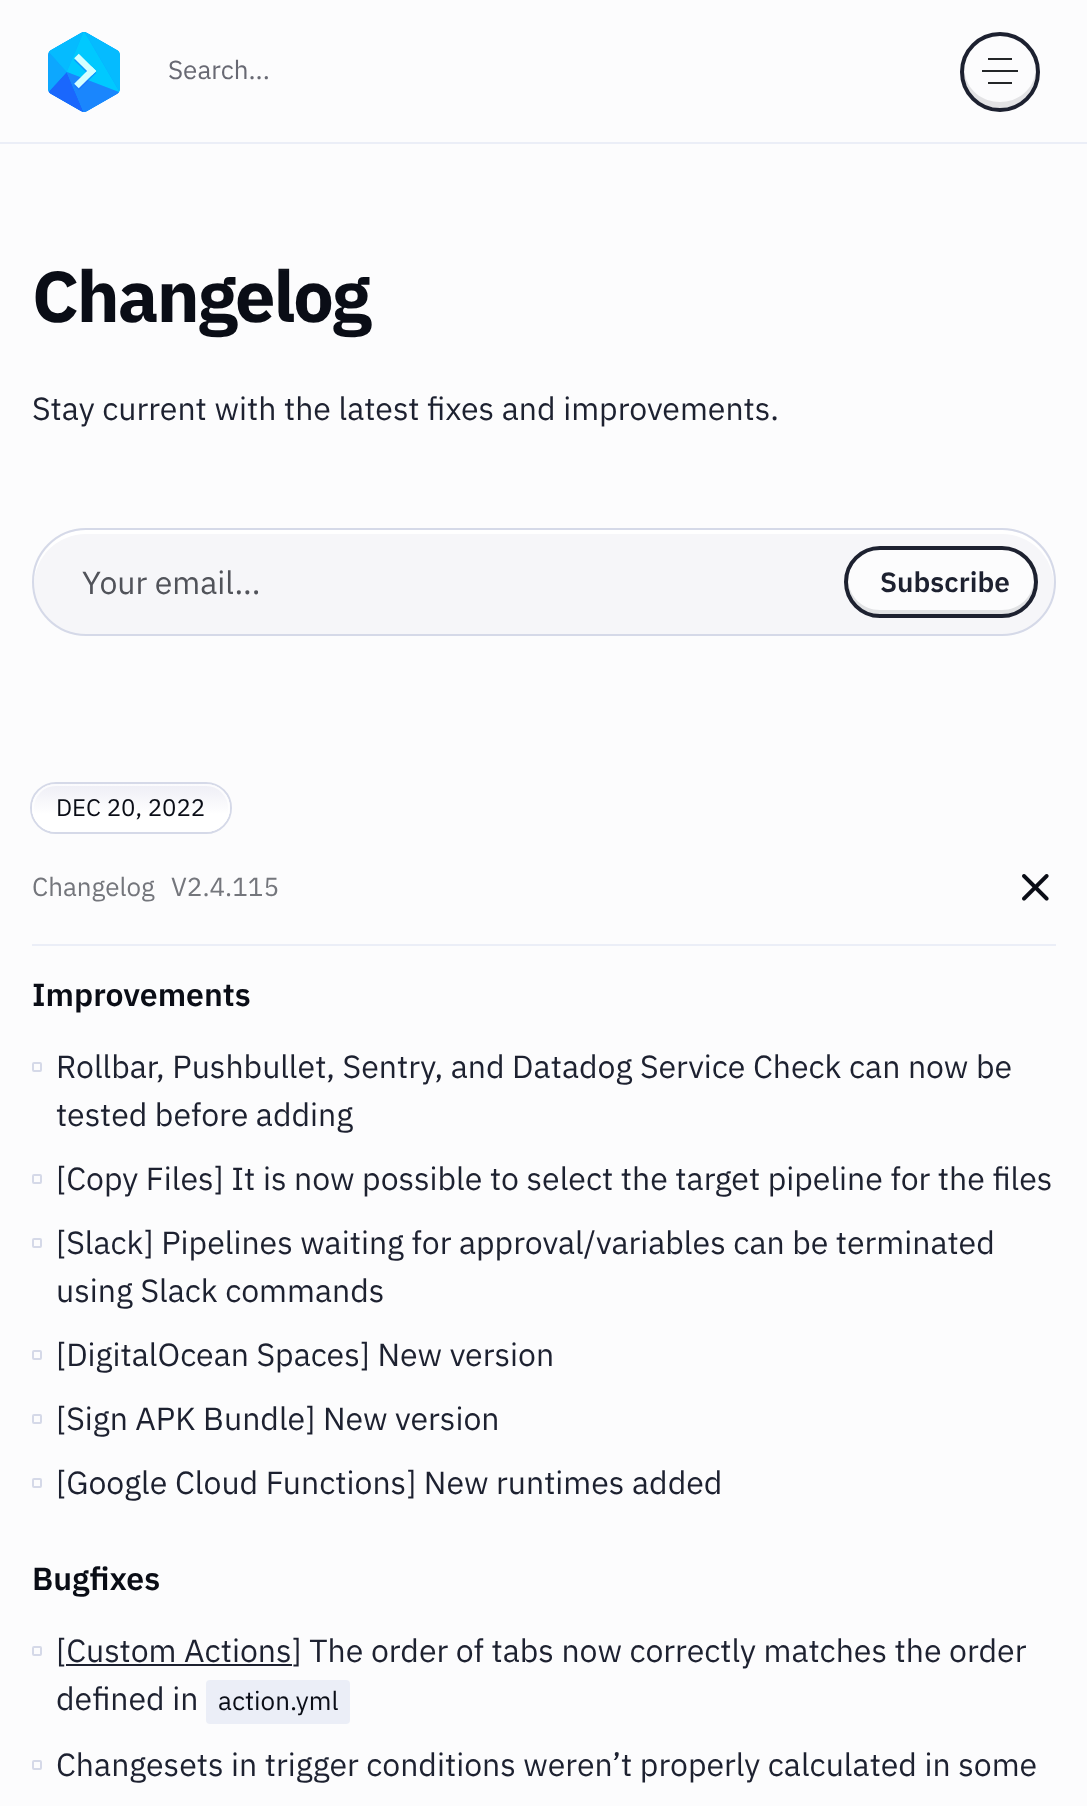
async function draw(canvas) {
  canvas.width = 1087;
  canvas.height = 1806;
  const ctx = canvas.getContext('2d');
  ctx.miterLimit = 4;
  ctx.fontKerning = 'normal';
  function label(s, x, y, font, color) {
    ctx.font = font;
    ctx.fillStyle = color;
    ctx.fillText(s, x, y);
  }
  function rect(x, y, w, h, color) {
    ctx.fillStyle = color;
    ctx.fillRect(x, y, w, h);
  }
  function roundedRect(x, y, w, h, r, color) {
    ctx.fillStyle = color;
    ctx.beginPath();
    ctx.roundRect(x, y, w, h, r);
    ctx.fill();
  }
  async function image(src, x, y, w, h) {
    const img = new Image();
    img.src = src;
    await img.decode();
    ctx.drawImage(img, x, y, w, h);
  }
  let gradient, path;

  rect(0, 0, 1087, 1806, '#fcfcfd');
  rect(0, 142, 1087, 2, '#ebeef7');
  await image('assets/img1.png', 48, 32, 72, 80);
  label('Search...', 168, 79, '26px IBM Plex Sans', '#686973');
  ctx.fillStyle = '#e3e3e5';
  path = new Path2D('M964 69C961 106 1009 123 1030 92C1034 85 1037 77 1036 69C1032 113 968 113 964 69Z');
  ctx.fill(path);
  ctx.beginPath();
  ctx.arc(1000, 72, 38, 0, 2 * Math.PI);
  ctx.strokeStyle = '#1d2130';
  ctx.lineWidth = 4;
  ctx.stroke();
  rect(982, 70, 36, 2, '#242628');
  rect(988, 58, 24, 2, '#242628');
  rect(988, 82, 24, 2, '#242628');
  ctx.letterSpacing = '-2px';
  label('Changelog', 32, 322, 'bold 72px IBM Plex Sans', '#0a0d16');
  ctx.letterSpacing = '0px';
  label('Stay current with the latest fixes and improvements.', 32, 420, '32px IBM Plex Sans', '#1d2130');
  roundedRect(32, 528, 1024, 108, 54, '#f6f6f9');
  ctx.fillStyle = '#fff';
  path = new Path2D('M86 534H1002C1030 534 1053 556 1054 584C1055 555 1031 530 1002 530H86C57 530 33 555 34 584C35 556 58 534 86 534Z');
  ctx.fill(path);
  ctx.beginPath();
  ctx.roundRect(33, 529, 1022, 106, 53);
  ctx.strokeStyle = '#d5d9e8';
  ctx.lineWidth = 2;
  ctx.stroke();
  label('Your email...', 82, 594, '32px IBM Plex Sans', '#51535a');
  roundedRect(844, 546, 194, 72, 36, '#fcfcfd');
  ctx.fillStyle = '#e1e2e4';
  path = new Path2D('M848 580V582C848 600 862 614 880 614H1002C1020 614 1034 600 1034 582V580C1033 597 1019 610 1002 610H880C863 610 849 597 848 580Z');
  ctx.fill(path);
  ctx.beginPath();
  ctx.roundRect(846, 548, 190, 68, 34);
  ctx.strokeStyle = '#1d2130';
  ctx.lineWidth = 4;
  ctx.stroke();
  label('Subscribe', 880, 592, '600 28px IBM Plex Sans', '#1d2130');
  ctx.beginPath();
  ctx.roundRect(31, 783, 200, 50, 25);
  ctx.strokeStyle = '#d5d9e8';
  ctx.lineWidth = 2;
  ctx.stroke();
  gradient = ctx.createLinearGradient(131, 782, 131, 834);
  gradient.addColorStop(0.01, '#ededf5');
  gradient.addColorStop(0.62, '#fff');
  ctx.fillStyle = gradient;
  ctx.beginPath();
  ctx.roundRect(32, 784, 198, 48, 24);
  ctx.fill();
  ctx.beginPath();
  ctx.roundRect(33, 785, 196, 46, 23);
  ctx.strokeStyle = '#ffffffb8';
  ctx.stroke();
  label('DEC 20, 2022', 56, 816, '24px IBM Plex Sans', '#0a0d16');
  rect(32, 944, 1024, 2, '#ebeef7');
  label('Changelog', 32, 896, '26px IBM Plex Sans', '#74767c');
  label('V2.4.115', 171, 896, '26px IBM Plex Sans', '#74767c');
  await image('assets/img2.png', 1022, 874, 27, 27);
  label('Improvements', 32, 1006, '600 32px IBM Plex Sans', '#0a0d16');
  ctx.beginPath();
  ctx.roundRect(33, 1063, 8, 8, 1);
  ctx.strokeStyle = '#d5d9e8';
  ctx.stroke();
  label('Rollbar, Pushbullet, Sentry, and Datadog Service Check can now be', 56, 1078, '32px IBM Plex Sans', '#1d2130');
  label('tested before adding', 56, 1126, '32px IBM Plex Sans', '#1d2130');
  ctx.beginPath();
  ctx.roundRect(33, 1175, 8, 8, 1);
  ctx.stroke();
  label('[Copy Files] It is now possible to select the target pipeline for the files', 56, 1190, '32px IBM Plex Sans', '#1d2130');
  ctx.beginPath();
  ctx.roundRect(33, 1239, 8, 8, 1);
  ctx.stroke();
  label('[Slack] Pipelines waiting for approval/variables can be terminated', 56, 1254, '32px IBM Plex Sans', '#1d2130');
  label('using Slack commands', 56, 1302, '32px IBM Plex Sans', '#1d2130');
  ctx.beginPath();
  ctx.roundRect(33, 1351, 8, 8, 1);
  ctx.stroke();
  label('[DigitalOcean Spaces] New version', 56, 1366, '32px IBM Plex Sans', '#1d2130');
  ctx.beginPath();
  ctx.roundRect(33, 1415, 8, 8, 1);
  ctx.stroke();
  label('[Sign APK Bundle] New version', 56, 1430, '32px IBM Plex Sans', '#1d2130');
  ctx.beginPath();
  ctx.roundRect(33, 1479, 8, 8, 1);
  ctx.stroke();
  label('[Google Cloud Functions] New runtimes added', 56, 1494, '32px IBM Plex Sans', '#1d2130');
  label('Bugfixes', 32, 1590, '600 32px IBM Plex Sans', '#0a0d16');
  ctx.beginPath();
  ctx.roundRect(33, 1647, 8, 8, 1);
  ctx.stroke();
  label('[Custom Actions] The order of tabs now correctly matches the order', 56, 1662, '32px IBM Plex Sans', '#1d2130');
  rect(66, 1664, 226, 2, '#1d2130');
  label('defined in', 56, 1710, '32px IBM Plex Sans', '#1d2130');
  roundedRect(206, 1680, 144, 44, 4, '#ebeef7');
  label('action.yml', 218, 1710, '26px IBM Plex Sans', '#0a0d16');
  ctx.beginPath();
  ctx.roundRect(33, 1761, 8, 8, 1);
  ctx.stroke();
  label('Changesets in trigger conditions weren’t properly calculated in some', 56, 1776, '32px IBM Plex Sans', '#1d2130');
  gradient = ctx.createLinearGradient(544, 130, 544, 274);
  gradient.addColorStop(0, '#fcfcfd');
  gradient.addColorStop(1, '#fcfcfd00');
  ctx.fillStyle = gradient;
  ctx.fillRect(82, 268, 207, 3);
}

draw(document.querySelector('canvas'));
